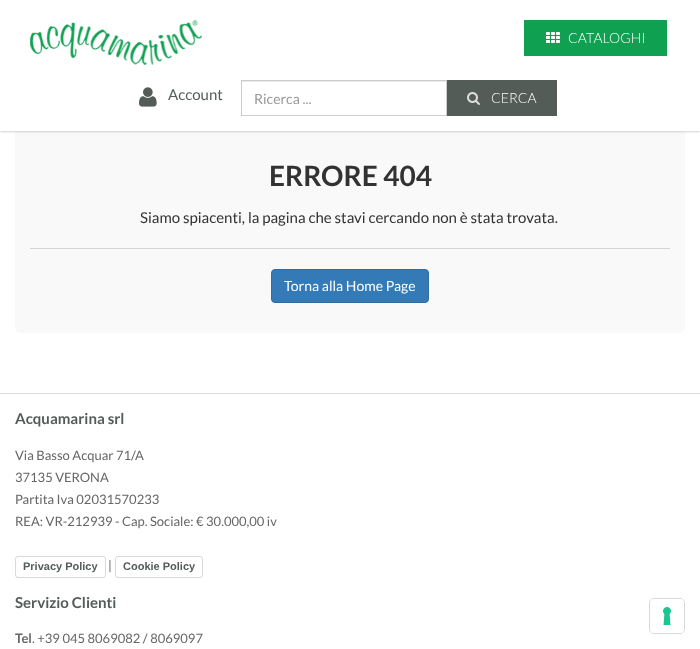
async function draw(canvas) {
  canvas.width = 700;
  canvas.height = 649;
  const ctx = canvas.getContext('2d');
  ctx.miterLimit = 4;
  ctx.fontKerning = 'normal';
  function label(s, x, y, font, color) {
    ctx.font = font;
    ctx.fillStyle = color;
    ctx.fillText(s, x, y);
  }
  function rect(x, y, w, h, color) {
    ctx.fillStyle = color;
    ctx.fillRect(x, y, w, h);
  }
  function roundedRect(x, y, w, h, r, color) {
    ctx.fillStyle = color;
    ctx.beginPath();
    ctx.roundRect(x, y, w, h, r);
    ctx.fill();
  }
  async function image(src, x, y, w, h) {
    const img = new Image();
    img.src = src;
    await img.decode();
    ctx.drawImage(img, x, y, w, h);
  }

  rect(0, 0, 700, 649, '#fff');
  roundedRect(15, 127, 670, 206, 6, '#f9f9f9');
  ctx.fillStyle = '#32323266';
  ctx.filter = 'blur(1.5px)';
  ctx.beginPath();
  ctx.rect(0, 0, 700, 131);
  ctx.fill();
  ctx.filter = 'none';
  rect(0, 0, 700, 131, '#fff');
  await image('assets/img1.png', 30, 20, 172, 45);
  rect(524, 20, 143, 36, '#10a052');
  await image('assets/img2.png', 546, 32, 14, 11);
  label('CATALOGHI', 568, 43, '300 14px Lato', '#fff');
  await image('assets/img3.png', 139, 87, 18, 20);
  label('Account', 168, 100, '15px Lato', '#545c58');
  rect(242, 81, 204, 1, '#ececec');
  ctx.strokeStyle = '#ccc';
  ctx.strokeRect(241.5, 80.5, 205, 35);
  label('Ricerca ...', 254, 104, '14px Lato', '#999');
  rect(447, 80, 110, 36, '#545c58');
  await image('assets/img4.png', 467, 92, 13, 13);
  label('CERCA', 491, 103, '300 14px Lato', '#fff');
  label('ERRORE 404', 269, 186, 'bold 28px Lato', '#323232');
  label('Siamo spiacenti, la pagina che stavi cercando non è stata trovata.', 140, 223, '15px Lato', '#323232');
  rect(30, 248, 640, 1, '#d5d5d5');
  ctx.fillStyle = '#337ab7';
  ctx.beginPath();
  ctx.roundRect(271.5, 269.5, 157, 33, 3.5);
  ctx.fill();
  ctx.strokeStyle = '#2e6da4';
  ctx.stroke();
  label('Torna alla Home Page', 284, 291, '14px Lato', '#fff');
  rect(0, 393, 700, 1, '#ddd');
  label('Acquamarina srl', 15, 424, 'bold 15px Lato', '#545c58');
  label('Via Basso Acquar 71/A', 15, 460, '13px Lato', '#666');
  label('37135 VERONA', 15, 482, '13px Lato', '#666');
  label('Partita Iva 02031570233', 15, 504, '13px Lato', '#666');
  label('REA: VR-212939 - Cap. Sociale: € 30.000,00 iv', 15, 526, '13px Lato', '#666');
  ctx.fillStyle = '#00000026';
  ctx.filter = 'blur(0.5px)';
  ctx.beginPath();
  ctx.roundRect(16, 558, 89, 20, 2);
  ctx.fill();
  ctx.filter = 'none';
  roundedRect(15, 556, 91, 22, 3, '#fff');
  ctx.beginPath();
  ctx.roundRect(15.5, 556.5, 90, 21, 2.5);
  ctx.strokeStyle = '#00000026';
  ctx.stroke();
  label('Privacy Policy', 23, 570, 'bold 11px Liberation Sans', '#545c58');
  label('|', 108, 570, '13px Lato', '#666');
  ctx.fillStyle = '#00000026';
  ctx.filter = 'blur(0.5px)';
  ctx.beginPath();
  ctx.roundRect(116, 558, 86, 20, 2);
  ctx.fill();
  ctx.filter = 'none';
  roundedRect(115, 556, 88, 22, 3, '#fff');
  ctx.beginPath();
  ctx.roundRect(115.5, 556.5, 87, 21, 2.5);
  ctx.stroke();
  label('Cookie Policy', 123, 570, 'bold 11px Liberation Sans', '#545c58');
  label('Servizio Clienti', 15, 608, 'bold 15px Lato', '#545c58');
  label('Tel', 15, 643, 'bold 13px Lato', '#666');
  label('. +39 045 8069082 / 8069097', 32, 643, '13px Lato', '#666');
  ctx.beginPath();
  ctx.roundRect(649.5, 598.5, 35, 35, 4.5);
  ctx.strokeStyle = '#d9d9d9';
  ctx.stroke();
  roundedRect(650, 599, 34, 34, 4, '#fff');
  await image('assets/img5.png', 663, 607, 8, 18);
}

draw(document.querySelector('canvas'));
